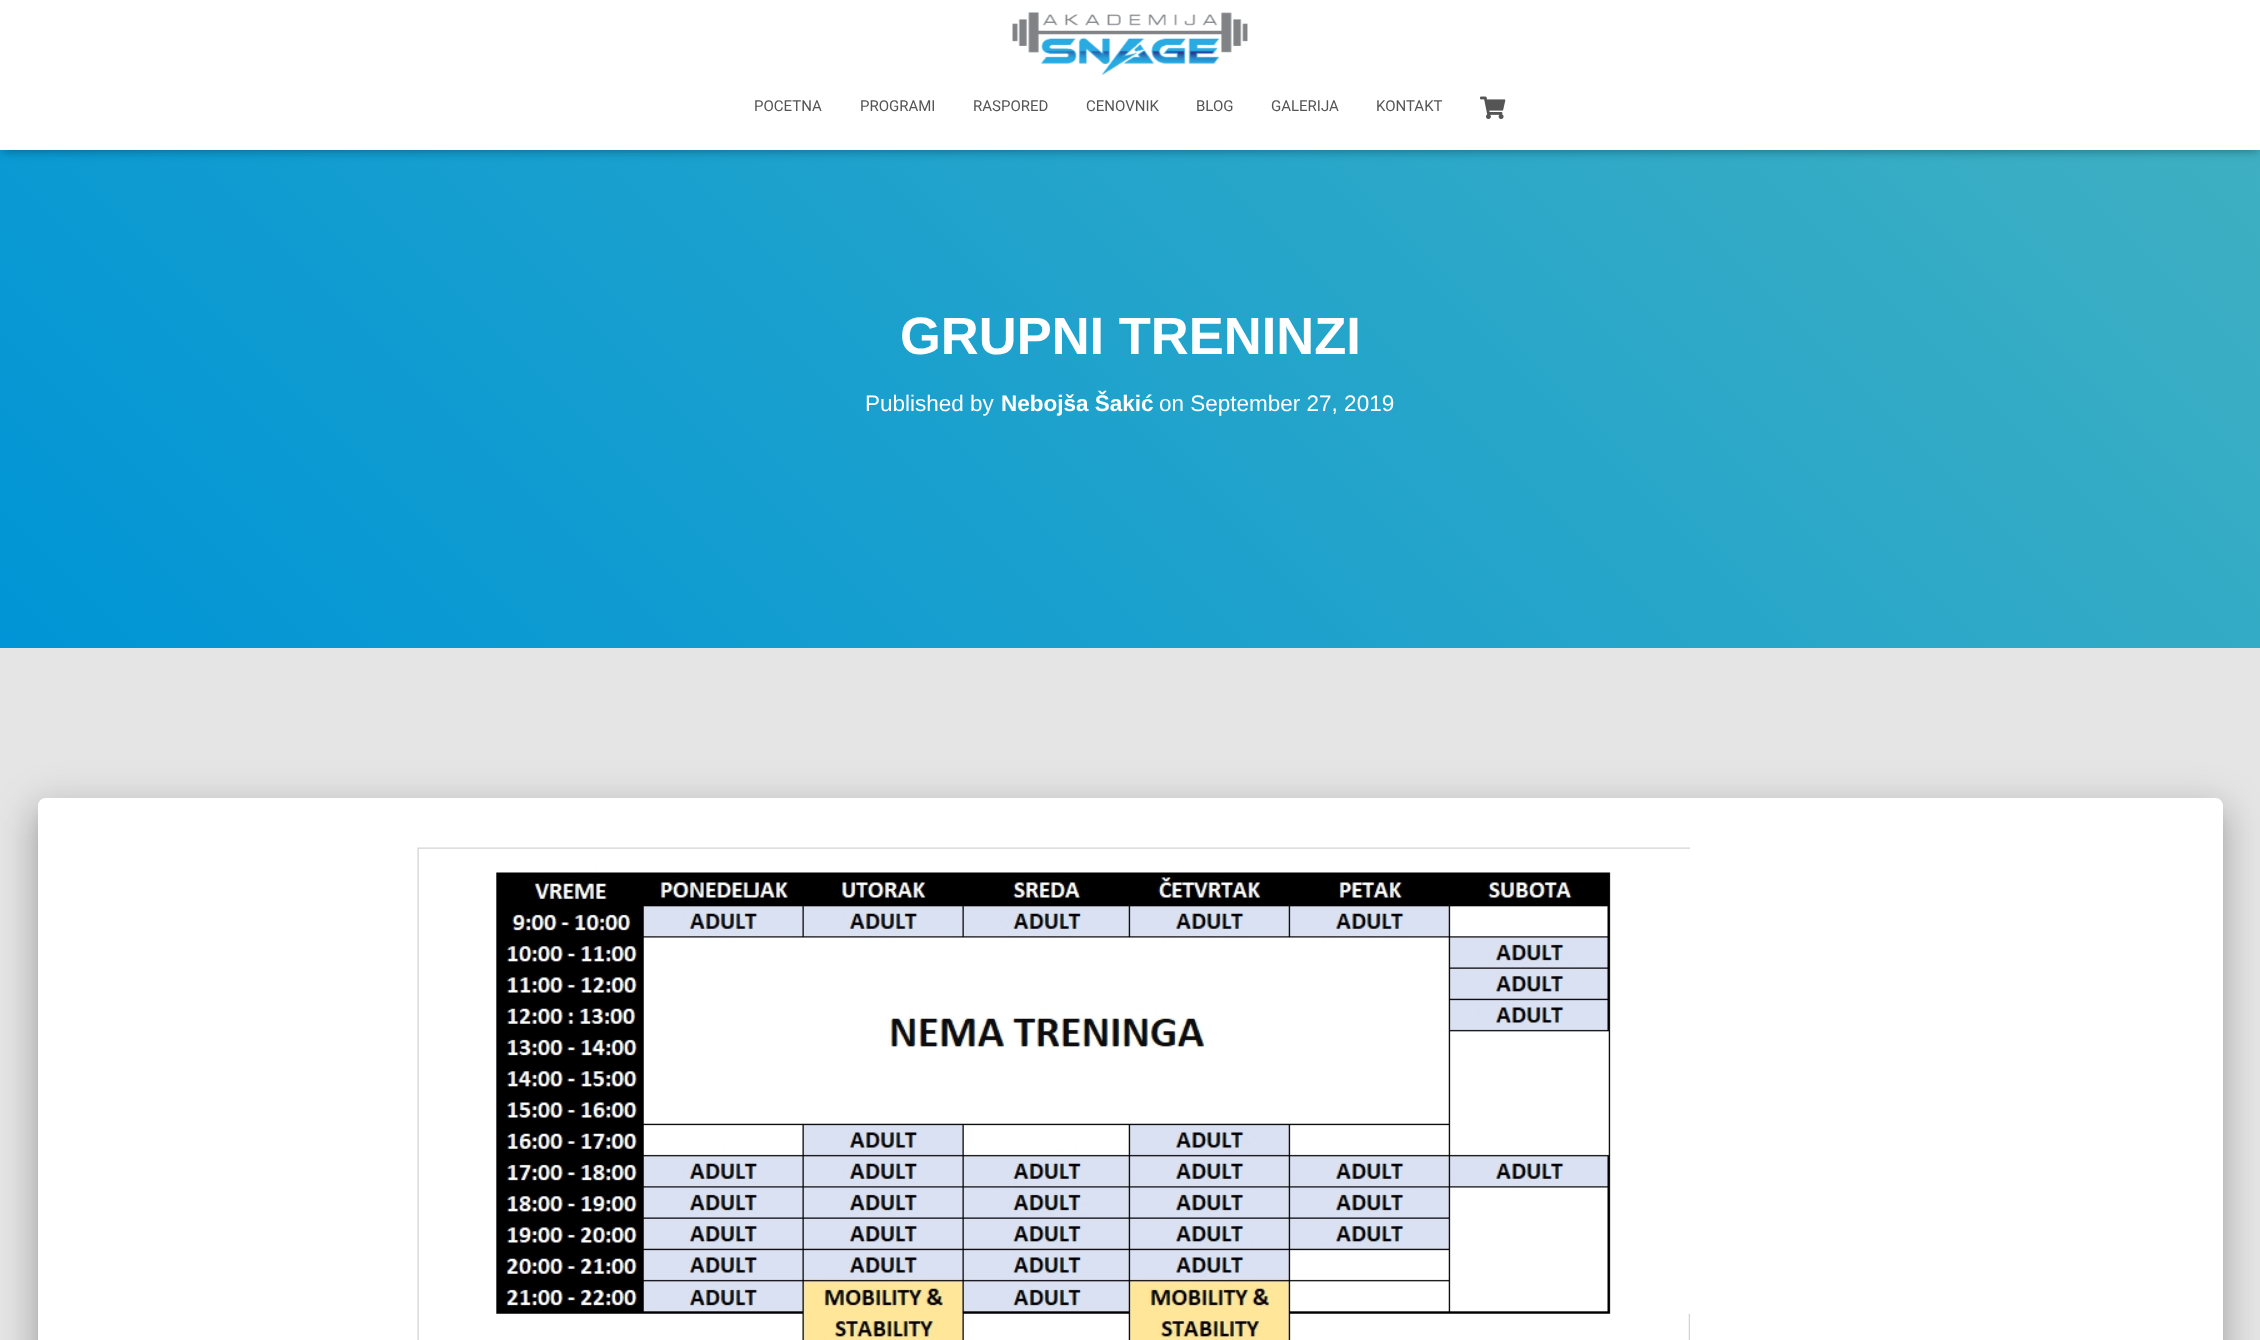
async function draw(canvas) {
  canvas.width = 2260;
  canvas.height = 1340;
  const ctx = canvas.getContext('2d');
  ctx.miterLimit = 4;
  ctx.fontKerning = 'normal';
  function label(s, x, y, font, color) {
    ctx.font = font;
    ctx.fillStyle = color;
    ctx.fillText(s, x, y);
  }
  function rect(x, y, w, h, color) {
    ctx.fillStyle = color;
    ctx.fillRect(x, y, w, h);
  }
  async function image(src, x, y, w, h) {
    const img = new Image();
    img.src = src;
    await img.decode();
    ctx.drawImage(img, x, y, w, h);
  }
  let gradient, path;

  rect(0, 0, 2260, 1340, '#e5e5e5');
  gradient = ctx.createLinearGradient(403, 1051, 1857, -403);
  gradient.addColorStop(0, '#0095d6');
  gradient.addColorStop(1, '#42b1c1');
  ctx.fillStyle = gradient;
  ctx.fillRect(0, 150, 2260, 498);
  ctx.fillStyle = '#0000001a';
  ctx.filter = 'blur(3px)';
  ctx.beginPath();
  ctx.rect(3, 8, 2255, 145);
  ctx.fill();
  ctx.filter = 'none';
  ctx.fillStyle = '#0000001f';
  ctx.filter = 'blur(6px)';
  ctx.beginPath();
  ctx.rect(0, 1, 2260, 150);
  ctx.fill();
  ctx.filter = 'none';
  ctx.fillStyle = '#0000006b';
  ctx.filter = 'blur(6px)';
  ctx.beginPath();
  ctx.rect(8, 9, 2245, 135);
  ctx.fill();
  ctx.filter = 'none';
  rect(0, 0, 2260, 150, '#fff');
  await image('assets/img1.png', 1012, 12, 236, 63);
  label('POCETNA', 754, 111, '15px Roboto', '#555');
  label('PROGRAMI', 860, 111, '15px Roboto', '#555');
  label('RASPORED', 973, 111, '15px Roboto', '#555');
  label('CENOVNIK', 1086, 111, '15px Roboto', '#555');
  label('BLOG', 1196, 111, '15px Roboto', '#555');
  label('GALERIJA', 1271, 111, '15px Roboto', '#555');
  label('KONTAKT', 1376, 111, '15px Roboto', '#555');
  await image('assets/img2.png', 1480, 96, 26, 23);
  label('GRUPNI TRENINZI', 900, 354, 'bold 52.5px Liberation Sans', '#fff');
  label('Published by', 865, 411, '22.5px Liberation Sans', '#fff');
  label('Nebojša Šakić', 1001, 411, 'bold 22.5px Liberation Sans', '#fff');
  label('on September 27, 2019', 1159, 411, '22.5px Liberation Sans', '#fff');
  ctx.fillStyle = '#00000033';
  ctx.filter = 'blur(6px)';
  ctx.beginPath();
  ctx.roundRect(44, 814, 2172, 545, 1);
  ctx.fill();
  ctx.filter = 'none';
  ctx.fillStyle = '#0000001f';
  ctx.filter = 'blur(19px)';
  ctx.beginPath();
  ctx.roundRect(31, 799, 2198, 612, 14);
  ctx.fill();
  ctx.filter = 'none';
  ctx.fillStyle = '#00000024';
  ctx.filter = 'blur(15px)';
  ctx.beginPath();
  ctx.roundRect(35, 815, 2190, 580, 10);
  ctx.fill();
  ctx.filter = 'none';
  ctx.fillStyle = '#fff';
  path = new Path2D('M46 798H2215C2219.5 798 2223 801.5 2223 806V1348H38V806C38 801.5 41.5 798 46 798Z');
  ctx.fill(path);
  await image('assets/img3.png', 417, 847, 1273, 493);
}

draw(document.querySelector('canvas'));
